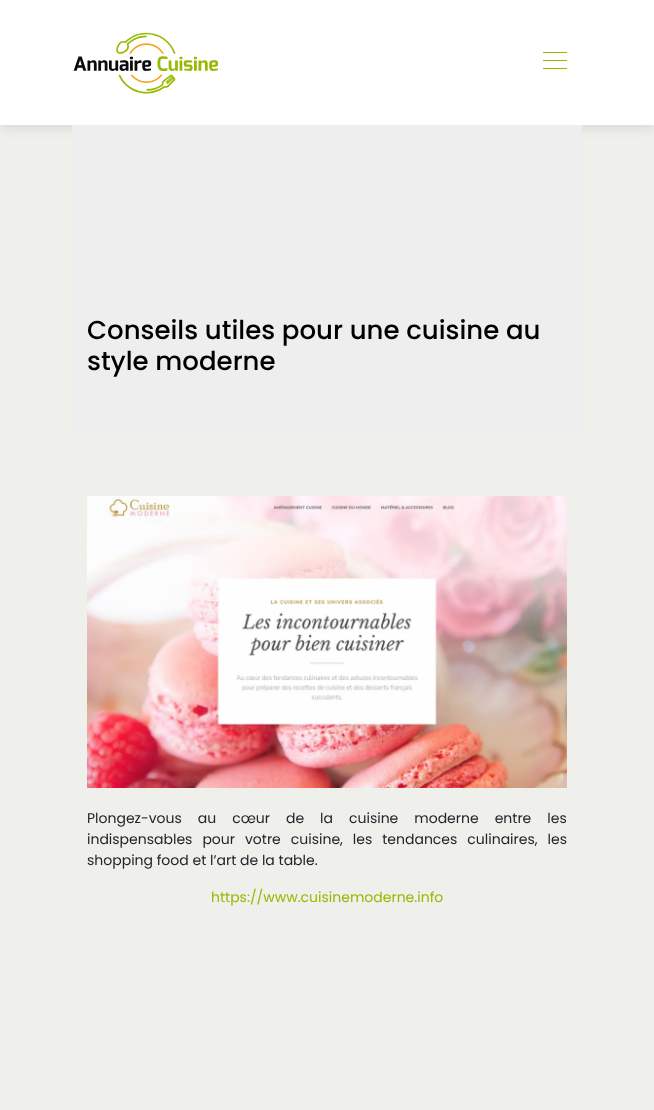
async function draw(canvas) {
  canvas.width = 654;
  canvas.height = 1110;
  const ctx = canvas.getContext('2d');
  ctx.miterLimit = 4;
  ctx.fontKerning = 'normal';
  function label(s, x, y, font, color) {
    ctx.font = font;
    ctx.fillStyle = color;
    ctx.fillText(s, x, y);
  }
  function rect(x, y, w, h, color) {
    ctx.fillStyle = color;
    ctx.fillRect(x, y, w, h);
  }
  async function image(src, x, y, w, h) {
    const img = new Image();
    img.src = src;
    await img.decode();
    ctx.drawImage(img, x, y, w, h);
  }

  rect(0, 0, 654, 1110, '#efefeb');
  ctx.fillStyle = '#0000001a';
  ctx.filter = 'blur(6.5px)';
  ctx.beginPath();
  ctx.rect(0, 2, 654, 125);
  ctx.fill();
  ctx.filter = 'none';
  rect(0, 0, 654, 125, '#fff');
  await image('assets/img1.png', 73, 32, 146, 62);
  rect(543, 52, 24, 1, '#95ba01');
  rect(543, 60, 24, 1, '#95ba01');
  rect(543, 68, 24, 1, '#95ba01');
  rect(72, 125, 510, 311, '#eee');
  label('Conseils utiles pour une cuisine au', 87, 339, '500 26px Poppins', '#000');
  label('style moderne', 87, 370, '500 26px Poppins', '#000');
  await image('assets/img2.png', 87, 496, 480, 292);
  ctx.wordSpacing = '12.25px';
  label('Plongez-vous au cœur de la cuisine moderne entre les', 87, 823, '14px Poppins', '#212529');
  ctx.wordSpacing = '6.25px';
  label('indispensables pour votre cuisine, les tendances culinaires, les', 87, 844, '14px Poppins', '#212529');
  ctx.wordSpacing = '0px';
  label('shopping food et l’art de la table.', 87, 865, '14px Poppins', '#212529');
  label('https://www.cuisinemoderne.info', 211, 902, '14px Poppins', '#95ba01');
}

draw(document.querySelector('canvas'));
